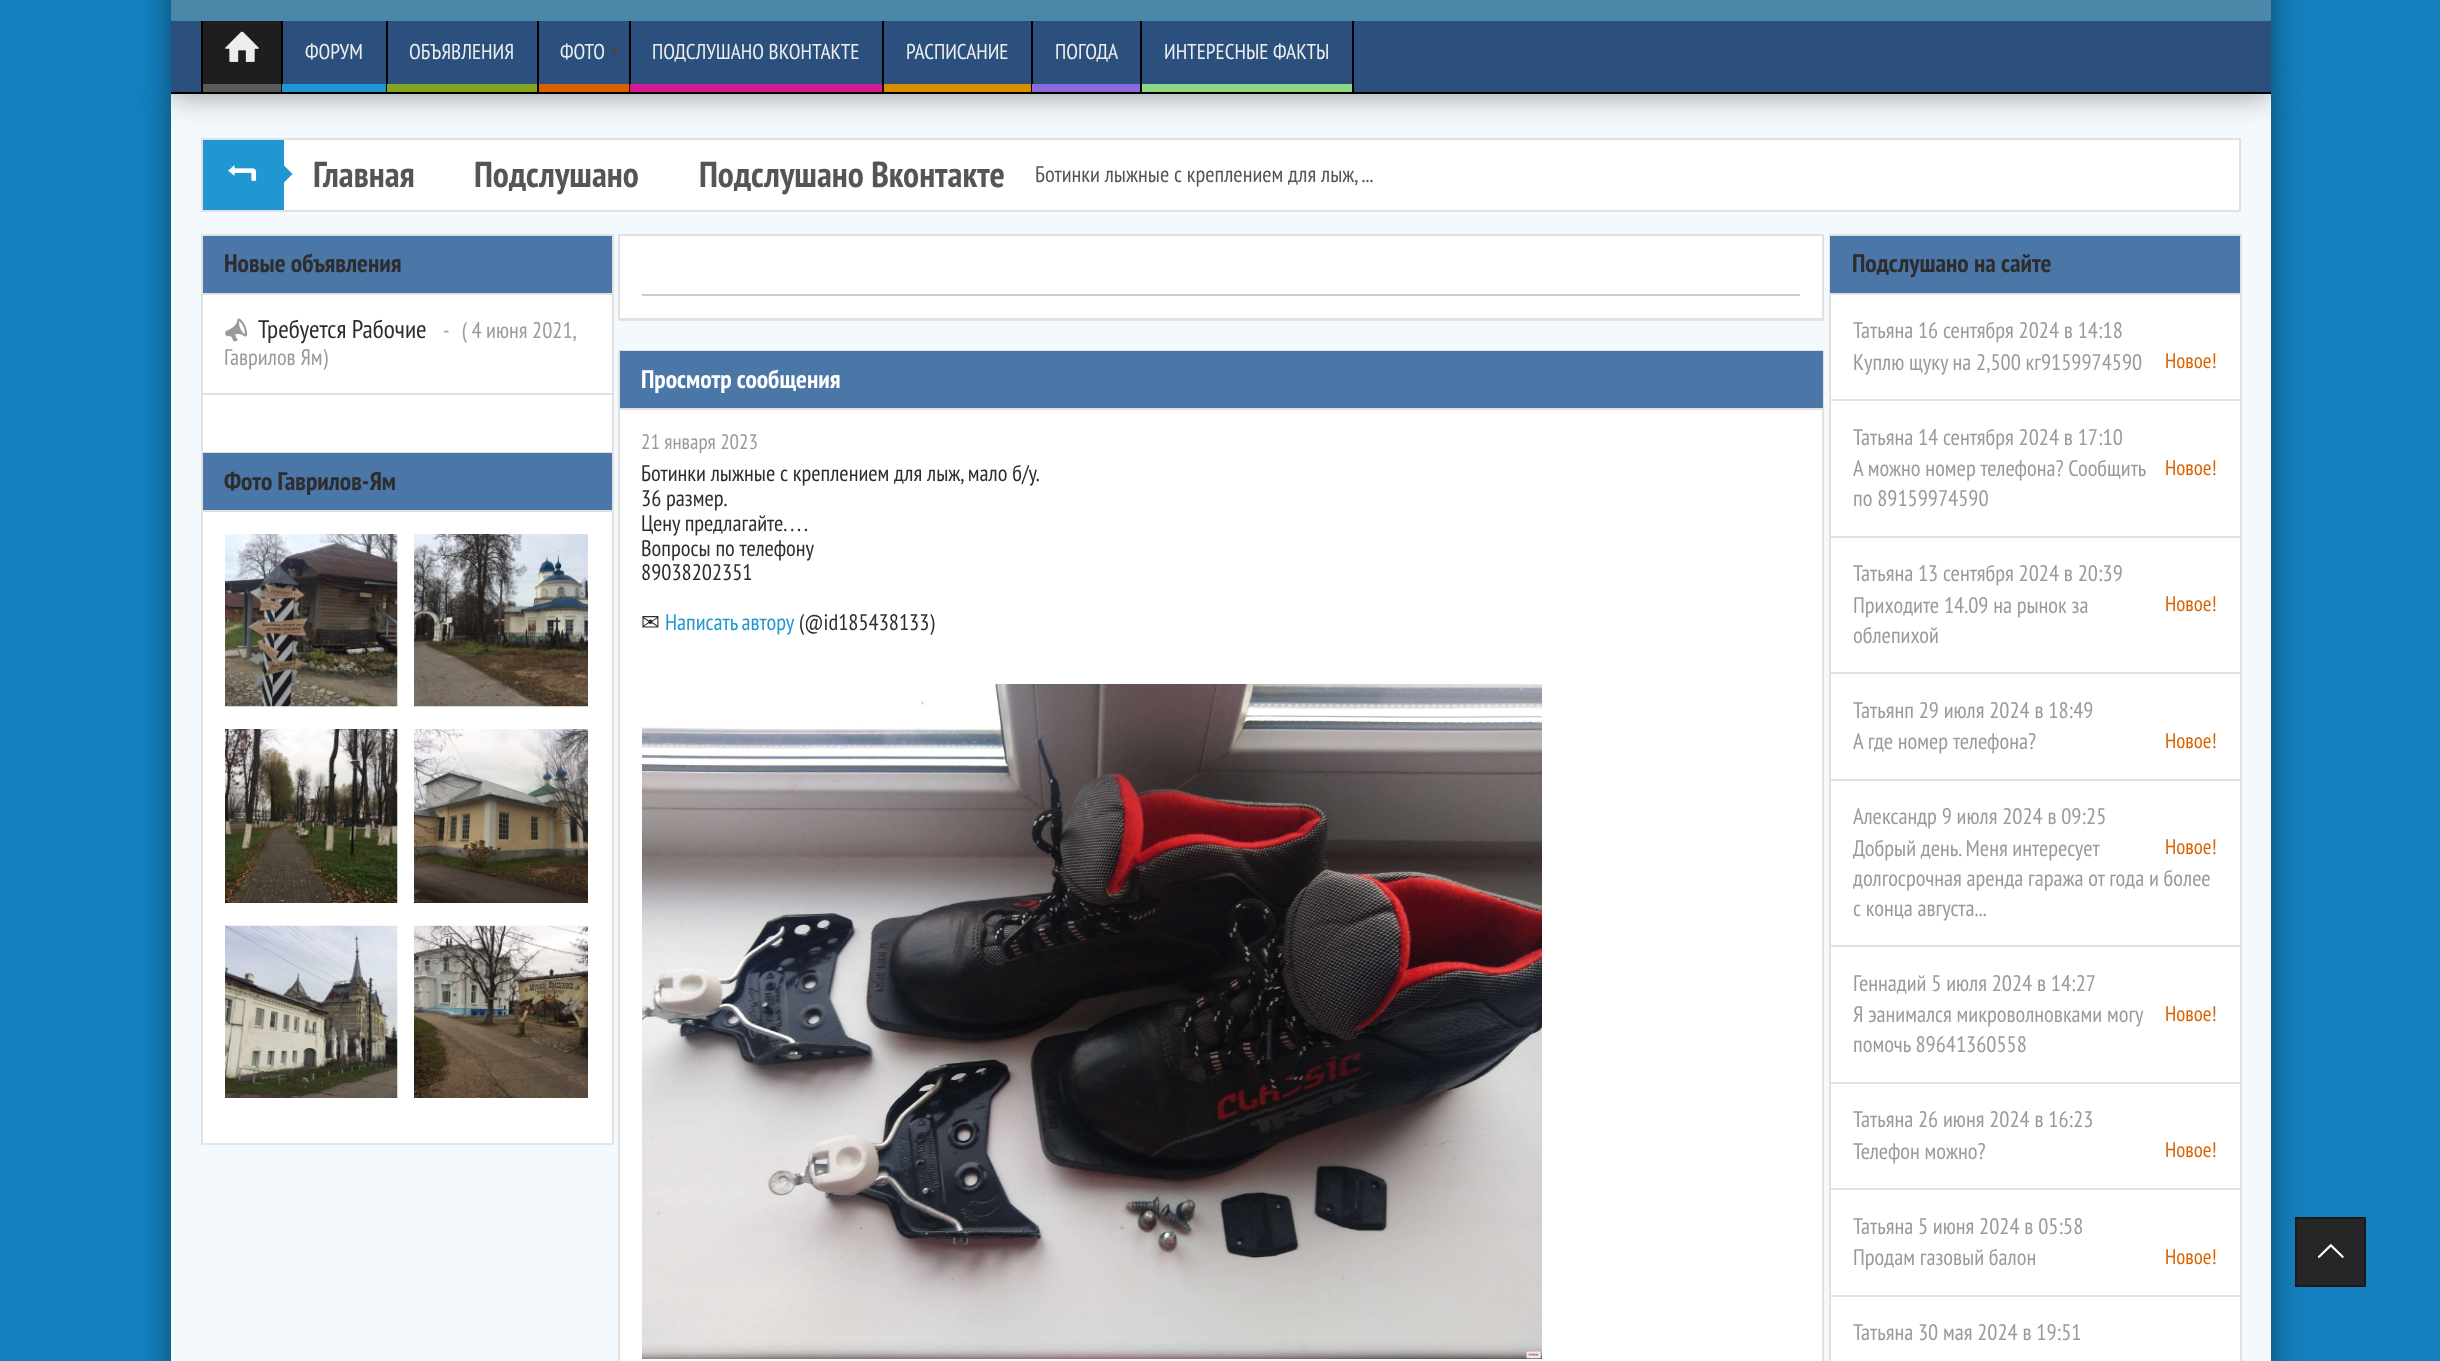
async function draw(canvas) {
  canvas.width = 2440;
  canvas.height = 1361;
  const ctx = canvas.getContext('2d');
  ctx.miterLimit = 4;
  ctx.fontKerning = 'normal';
  function label(s, x, y, font, color) {
    ctx.font = font;
    ctx.fillStyle = color;
    ctx.fillText(s, x, y);
  }
  function rect(x, y, w, h, color) {
    ctx.fillStyle = color;
    ctx.fillRect(x, y, w, h);
  }
  async function image(src, x, y, w, h) {
    const img = new Image();
    img.src = src;
    await img.decode();
    ctx.drawImage(img, x, y, w, h);
  }
  let path;

  rect(0, 0, 2440, 1361, '#1581be');
  ctx.fillStyle = '#00000070';
  ctx.filter = 'blur(16px)';
  ctx.beginPath();
  ctx.rect(171, 93, 2100, 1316);
  ctx.fill();
  ctx.filter = 'none';
  rect(171, 94, 2100, 1267, '#f3f9fc');
  rect(284, 140, 1955, 70, '#fff');
  ctx.strokeStyle = '#e1e1e1';
  ctx.lineWidth = 2;
  ctx.strokeRect(202, 139, 2038, 72);
  ctx.save();
  path = new Path2D('M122 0H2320V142H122ZM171-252H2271V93H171Z');
  ctx.clip(path, 'evenodd');
  ctx.fillStyle = '#00000070';
  ctx.filter = 'blur(16px)';
  ctx.beginPath();
  ctx.rect(171, -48, 2100, 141);
  ctx.fill();
  ctx.filter = 'none';
  ctx.restore();
  rect(171, 0, 2100, 21, '#90909070');
  rect(171, 21, 2100, 71, '#2b507e');
  rect(171, 92, 2100, 2, '#000');
  rect(203, 21, 78, 63, '#1e1e1e');
  rect(281, 21, 2, 71, '#000');
  rect(201, 21, 2, 71, '#000');
  rect(203, 84, 78, 8, '#5a5a5a');
  await image('assets/img1.png', 225, 31, 34, 31);
  rect(386, 21, 2, 71, '#000');
  rect(282, 84, 104, 8, '#2197d2');
  label('ФОРУМ', 305, 59, '21.4px PT Sans Narrow', '#ededed');
  rect(537, 21, 2, 71, '#000');
  rect(387, 84, 150, 8, '#84a520');
  label('ОБЪЯВЛЕНИЯ', 409, 59, '21.4px PT Sans Narrow', '#ededed');
  rect(629, 21, 2, 71, '#000');
  await image('assets/img2.png', 610, 48, 9, 7);
  rect(539, 84, 90, 8, '#d96100');
  label('ФОТО', 560, 59, '21.4px PT Sans Narrow', '#ededed');
  rect(882, 21, 2, 71, '#000');
  rect(630, 84, 252, 8, '#d61895');
  label('ПОДСЛУШАНО ВКОНТАКТЕ', 652, 59, '21.4px PT Sans Narrow', '#ededed');
  rect(1031, 21, 2, 71, '#000');
  rect(884, 84, 147, 8, '#d78f00');
  label('РАСПИСАНИЕ', 906, 59, '21.4px PT Sans Narrow', '#ededed');
  rect(1140, 21, 2, 71, '#000');
  rect(1032, 84, 108, 8, '#8a6ada');
  label('ПОГОДА', 1055, 59, '21.4px PT Sans Narrow', '#ededed');
  rect(1352, 21, 2, 71, '#000');
  rect(1142, 84, 210, 8, '#8ed885');
  label('ИНТЕРЕСНЫЕ ФАКТЫ', 1164, 59, '21.4px PT Sans Narrow', '#ededed');
  rect(203, 140, 81, 70, '#2197d2');
  await image('assets/img3.png', 228, 165, 29, 16);
  path = new Path2D('M283.5 183V165L292.5 174Z');
  ctx.fill(path);
  label('Главная', 313, 187, 'bold 36px PT Sans Narrow', '#555');
  label('Подслушано', 474, 187, 'bold 36px PT Sans Narrow', '#555');
  label('Подслушано Вконтакте', 699, 187, 'bold 36px PT Sans Narrow', '#555');
  label('Ботинки лыжные с креплением для лыж, ...', 1035, 182, '22.5px PT Sans Narrow', '#555');
  rect(203, 295, 409, 157, '#fff');
  rect(201, 234, 413, 2, '#e1e1e1');
  rect(612, 234, 2, 218, '#e1e1e1');
  rect(201, 234, 2, 218, '#e1e1e1');
  rect(203, 236, 409, 57, '#4a76a8');
  rect(203, 293, 409, 2, '#e1e1e1');
  label('Новые объявления', 224, 272, 'bold 25.5px PT Sans Narrow', '#2d2d2d');
  await image('assets/img4.png', 225, 318, 23, 24);
  label('Требуется Рабочие', 258, 338, '25.5px PT Sans Narrow', '#2d2d2d');
  ctx.wordSpacing = '-0.25px';
  label('-   ( 4 июня 2021,', 443, 338, '22.5px PT Sans Narrow', '#9a9a9a');
  ctx.wordSpacing = '0px';
  label('Гаврилов Ям)', 224, 365, '22.5px PT Sans Narrow', '#9a9a9a');
  rect(203, 393, 409, 2, '#e1e1e1');
  ctx.fillStyle = '#e5e5e5';
  path = new Path2D('M201 1143V1145H614V453V1143Z');
  ctx.fill(path);
  rect(203, 512, 409, 631, '#fff');
  rect(201, 452, 413, 1, '#e1e1e1');
  rect(612, 452, 2, 691, '#e1e1e1');
  rect(201, 452, 2, 691, '#e1e1e1');
  rect(203, 453, 409, 57, '#4a76a8');
  rect(203, 510, 409, 2, '#e1e1e1');
  label('Фото Гаврилов-Ям', 224, 490, 'bold 25.5px PT Sans Narrow', '#2d2d2d');
  await image('assets/img5.png', 225, 534, 173, 173);
  await image('assets/img6.png', 414, 534, 174, 173);
  await image('assets/img7.png', 225, 729, 173, 174);
  await image('assets/img8.png', 414, 729, 174, 174);
  await image('assets/img9.png', 225, 925, 173, 173);
  await image('assets/img10.png', 414, 925, 174, 173);
  rect(618, 320, 1206, 1, '#e5e5e5');
  ctx.fillStyle = '#fff';
  ctx.beginPath();
  ctx.rect(619, 235, 1204, 84);
  ctx.fill();
  ctx.stroke();
  rect(642, 294, 1158, 2, '#ccc');
  rect(620, 410, 1202, 951, '#fff');
  ctx.strokeRect(619, 351, 1204, 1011);
  rect(620, 351, 1203, 57, '#4a76a8');
  rect(620, 408, 1203, 2, '#e1e1e1');
  label('Просмотр сообщения', 641, 388, 'bold 25.5px PT Sans Narrow', '#fff');
  label('21 января 2023', 641, 449, '21px PT Sans Narrow', '#9a9a9a');
  label('Ботинки лыжные с креплением для лыж, мало б/у.', 641, 481, '22.5px PT Sans Narrow', '#2d2d2d');
  label('36 размер.', 641, 506, '22.5px PT Sans Narrow', '#2d2d2d');
  label('Цену предлагайте. . . .', 641, 531, '22.5px PT Sans Narrow', '#2d2d2d');
  label('Вопросы по телефону', 641, 556, '22.5px PT Sans Narrow', '#2d2d2d');
  label('89038202351', 641, 580, '22.5px PT Sans Narrow', '#2d2d2d');
  label('✉', 641, 630, '22.5px DejaVu Sans', '#2d2d2d');
  ctx.wordSpacing = '-1px';
  label('Написать автору', 665, 630, '22.5px PT Sans Narrow', '#2197d2');
  ctx.wordSpacing = '0px';
  label('(@id185438133)', 799, 630, '22.5px PT Sans Narrow', '#2d2d2d');
  await image('assets/img11.png', 642, 684, 900, 675);
  rect(1831, 295, 409, 1066, '#fff');
  rect(1829, 234, 412, 2, '#e1e1e1');
  rect(2240, 234, 2, 1127, '#e1e1e1');
  rect(1829, 234, 2, 1127, '#e1e1e1');
  rect(1830, 236, 410, 57, '#4a76a8');
  rect(1830, 293, 410, 2, '#e1e1e1');
  label('Подслушано на сайте', 1852, 272, 'bold 25.5px PT Sans Narrow', '#2d2d2d');
  rect(1830, 399, 410, 2, '#e1e1e1');
  label('Татьяна 16 сентября 2024 в 14:18', 1853, 338, '22.5px PT Sans Narrow', '#9a9a9a');
  label('Куплю щуку на 2,500 кг9159974590', 1853, 370, '22.5px PT Sans Narrow', '#9a9a9a');
  label('Новое!', 2165, 368, '21px PT Sans Narrow', '#d96100');
  rect(1830, 536, 410, 2, '#e1e1e1');
  label('Татьяна 14 сентября 2024 в 17:10', 1853, 445, '22.5px PT Sans Narrow', '#9a9a9a');
  label('А можно номер телефона? Сообщить', 1853, 476, '22.5px PT Sans Narrow', '#9a9a9a');
  label('Новое!', 2165, 475, '21px PT Sans Narrow', '#d96100');
  label('по 89159974590', 1853, 506, '22.5px PT Sans Narrow', '#9a9a9a');
  rect(1830, 672, 410, 2, '#e1e1e1');
  label('Татьяна 13 сентября 2024 в 20:39', 1853, 581, '22.5px PT Sans Narrow', '#9a9a9a');
  label('Приходите 14.09 на рынок за', 1853, 613, '22.5px PT Sans Narrow', '#9a9a9a');
  label('Новое!', 2165, 611, '21px PT Sans Narrow', '#d96100');
  label('облепихой', 1853, 643, '22.5px PT Sans Narrow', '#9a9a9a');
  rect(1830, 779, 410, 2, '#e1e1e1');
  label('Татьянп 29 июля 2024 в 18:49', 1853, 718, '22.5px PT Sans Narrow', '#9a9a9a');
  label('А где номер телефона?', 1853, 749, '22.5px PT Sans Narrow', '#9a9a9a');
  label('Новое!', 2165, 748, '21px PT Sans Narrow', '#d96100');
  rect(1830, 945, 410, 2, '#e1e1e1');
  label('Александр 9 июля 2024 в 09:25', 1853, 824, '22.5px PT Sans Narrow', '#9a9a9a');
  label('Добрый день. Меня интересует', 1853, 856, '22.5px PT Sans Narrow', '#9a9a9a');
  label('Новое!', 2165, 854, '21px PT Sans Narrow', '#d96100');
  label('долгосрочная аренда гаража от года и более', 1853, 886, '22.5px PT Sans Narrow', '#9a9a9a');
  label('с конца августа...', 1853, 916, '22.5px PT Sans Narrow', '#9a9a9a');
  rect(1830, 1082, 410, 2, '#e1e1e1');
  label('Геннадий 5 июля 2024 в 14:27', 1853, 991, '22.5px PT Sans Narrow', '#9a9a9a');
  label('Я эанимался микроволновками могу', 1853, 1022, '22.5px PT Sans Narrow', '#9a9a9a');
  label('Новое!', 2165, 1021, '21px PT Sans Narrow', '#d96100');
  label('помочь 89641360558', 1853, 1052, '22.5px PT Sans Narrow', '#9a9a9a');
  rect(1830, 1188, 410, 2, '#e1e1e1');
  label('Татьяна 26 июня 2024 в 16:23', 1853, 1127, '22.5px PT Sans Narrow', '#9a9a9a');
  label('Телефон можно?', 1853, 1159, '22.5px PT Sans Narrow', '#9a9a9a');
  label('Новое!', 2165, 1157, '21px PT Sans Narrow', '#d96100');
  rect(1830, 1295, 410, 2, '#e1e1e1');
  label('Татьяна 5 июня 2024 в 05:58', 1853, 1234, '22.5px PT Sans Narrow', '#9a9a9a');
  label('Продам газовый балон', 1853, 1265, '22.5px PT Sans Narrow', '#9a9a9a');
  label('Новое!', 2165, 1264, '21px PT Sans Narrow', '#d96100');
  label('Татьяна 30 мая 2024 в 19:51', 1853, 1340, '22.5px PT Sans Narrow', '#9a9a9a');
  ctx.fillStyle = '#262626';
  ctx.beginPath();
  ctx.rect(2296, 1218, 69, 68);
  ctx.fill();
  ctx.strokeStyle = '#1a1a1a';
  ctx.stroke();
  await image('assets/img12.png', 2317, 1244, 27, 14);
}

draw(document.querySelector('canvas'));
